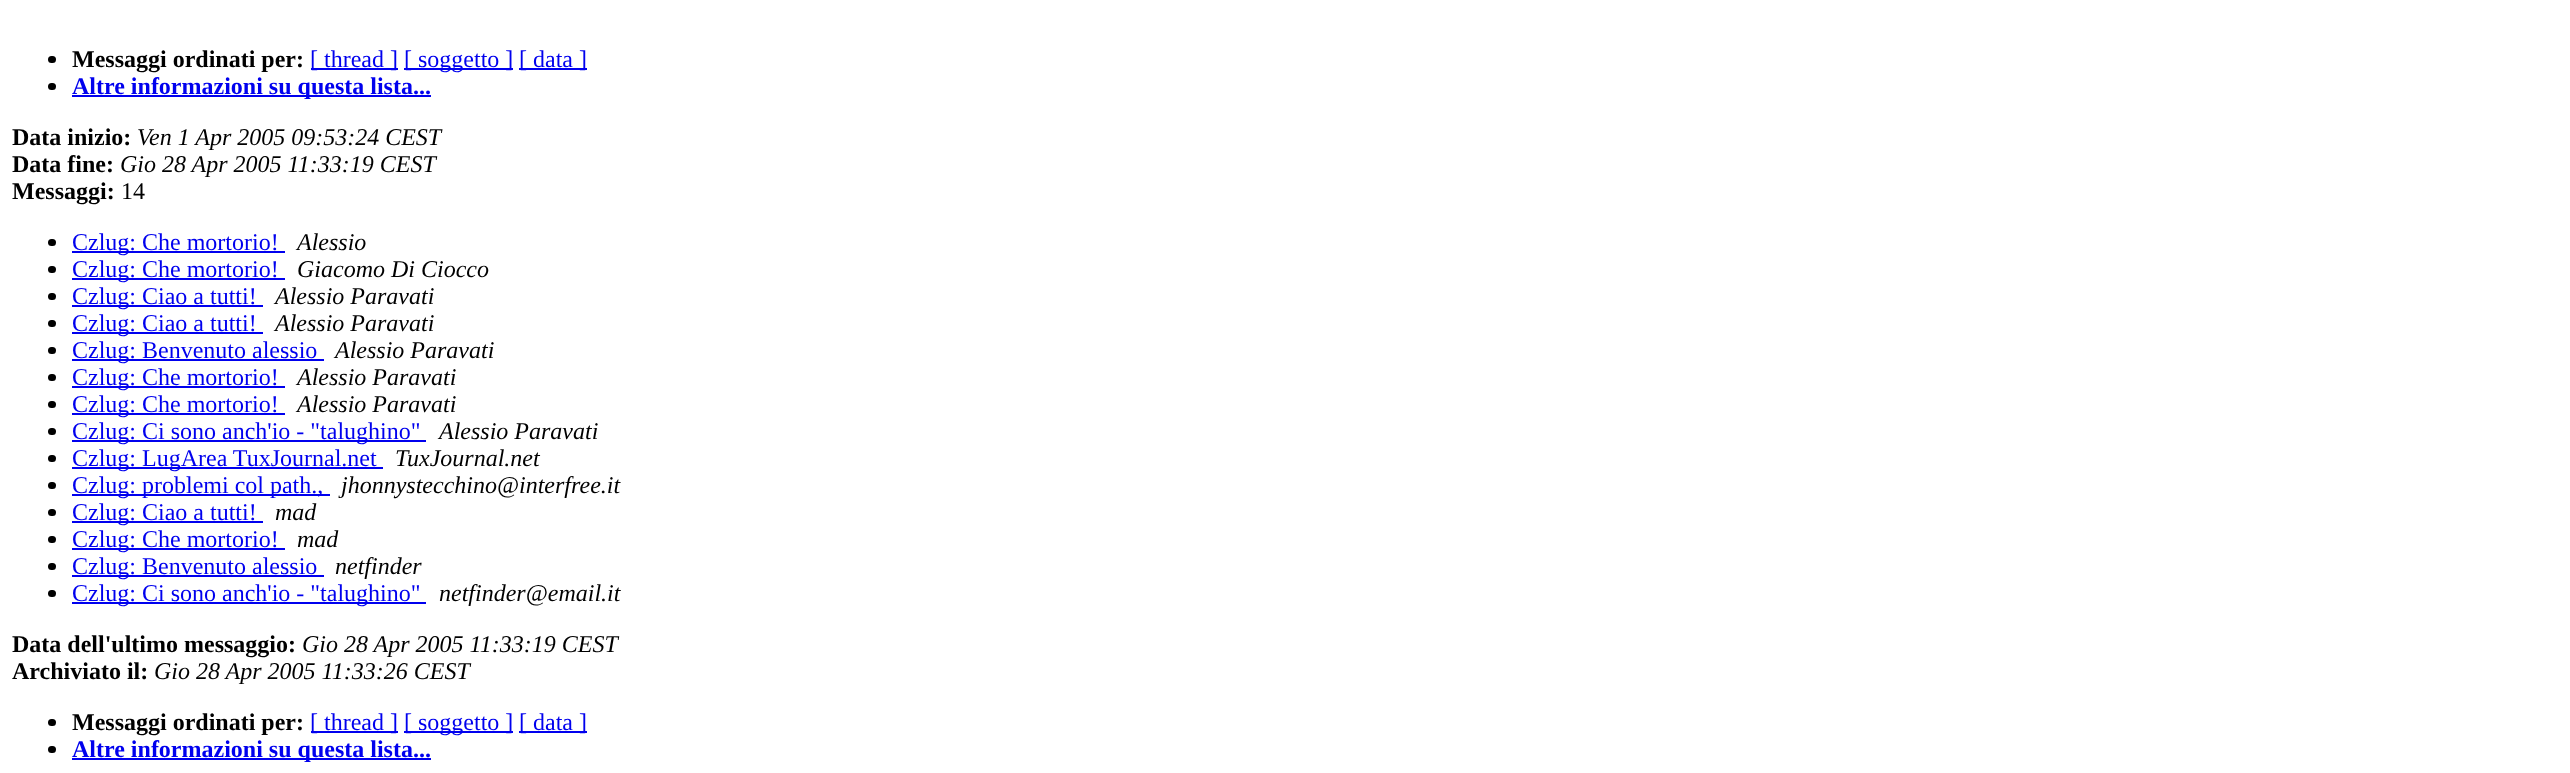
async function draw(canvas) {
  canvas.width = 2570;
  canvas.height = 773;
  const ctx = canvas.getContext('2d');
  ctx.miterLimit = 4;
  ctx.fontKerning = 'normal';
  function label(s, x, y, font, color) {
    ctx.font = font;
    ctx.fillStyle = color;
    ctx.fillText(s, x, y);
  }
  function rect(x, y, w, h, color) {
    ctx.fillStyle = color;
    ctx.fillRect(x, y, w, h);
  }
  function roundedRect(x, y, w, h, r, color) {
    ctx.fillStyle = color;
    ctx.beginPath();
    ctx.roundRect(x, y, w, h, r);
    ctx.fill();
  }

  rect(0, 0, 2570, 773, '#fff');
  roundedRect(48, 56, 8, 7, 3.5, '#000');
  label('Messaggi ordinati per:', 72, 67, 'bold 24px Liberation Serif', '#000');
  rect(311, 68, 87, 2, '#00e');
  label('[ thread ]', 310, 67, '24px Liberation Serif', '#00e');
  rect(404, 68, 109, 2, '#00e');
  label('[ soggetto ]', 404, 67, '24px Liberation Serif', '#00e');
  rect(519, 68, 68, 2, '#00e');
  label('[ data ]', 519, 67, '24px Liberation Serif', '#00e');
  roundedRect(48, 83, 8, 7, 3.5, '#000');
  rect(72, 95, 359, 2, '#00e');
  label('Altre informazioni su questa lista...', 72, 94, 'bold 24px Liberation Serif', '#00e');
  label('Data inizio:', 12, 145, 'bold 24px Liberation Serif', '#000');
  label('Ven 1 Apr 2005 09:53:24 CEST', 137, 145, 'italic 24px Liberation Serif', '#000');
  label('Data fine:', 12, 172, 'bold 24px Liberation Serif', '#000');
  label('Gio 28 Apr 2005 11:33:19 CEST', 120, 172, 'italic 24px Liberation Serif', '#000');
  label('Messaggi:', 12, 199, 'bold 24px Liberation Serif', '#000');
  label('14', 121, 199, '24px Liberation Serif', '#000');
  roundedRect(48, 239, 8, 7, 3.5, '#000');
  rect(72, 251, 213, 2, '#00e');
  label('Czlug: Che mortorio!', 72, 250, '24px Liberation Serif', '#00e');
  label('Alessio', 297, 250, 'italic 24px Liberation Serif', '#000');
  roundedRect(48, 266, 8, 7, 3.5, '#000');
  rect(72, 278, 213, 2, '#00e');
  label('Czlug: Che mortorio!', 72, 277, '24px Liberation Serif', '#00e');
  label('Giacomo Di Ciocco', 297, 277, 'italic 24px Liberation Serif', '#000');
  roundedRect(48, 293, 8, 7, 3.5, '#000');
  rect(72, 305, 191, 2, '#00e');
  label('Czlug: Ciao a tutti!', 72, 304, '24px Liberation Serif', '#00e');
  label('Alessio Paravati', 275, 304, 'italic 24px Liberation Serif', '#000');
  roundedRect(48, 320, 8, 7, 3.5, '#000');
  rect(72, 332, 191, 2, '#00e');
  label('Czlug: Ciao a tutti!', 72, 331, '24px Liberation Serif', '#00e');
  label('Alessio Paravati', 275, 331, 'italic 24px Liberation Serif', '#000');
  roundedRect(48, 347, 8, 7, 3.5, '#000');
  rect(72, 359, 252, 2, '#00e');
  label('Czlug: Benvenuto alessio', 72, 358, '24px Liberation Serif', '#00e');
  label('Alessio Paravati', 335, 358, 'italic 24px Liberation Serif', '#000');
  roundedRect(48, 374, 8, 7, 3.5, '#000');
  rect(72, 386, 213, 2, '#00e');
  label('Czlug: Che mortorio!', 72, 385, '24px Liberation Serif', '#00e');
  label('Alessio Paravati', 297, 385, 'italic 24px Liberation Serif', '#000');
  roundedRect(48, 401, 8, 7, 3.5, '#000');
  rect(72, 413, 213, 2, '#00e');
  label('Czlug: Che mortorio!', 72, 412, '24px Liberation Serif', '#00e');
  label('Alessio Paravati', 297, 412, 'italic 24px Liberation Serif', '#000');
  roundedRect(48, 428, 8, 7, 3.5, '#000');
  rect(72, 440, 354, 2, '#00e');
  label('Czlug: Ci sono anch\'io - "talughino"', 72, 439, '24px Liberation Serif', '#00e');
  label('Alessio Paravati', 439, 439, 'italic 24px Liberation Serif', '#000');
  roundedRect(48, 455, 8, 7, 3.5, '#000');
  rect(72, 467, 311, 2, '#00e');
  label('Czlug: LugArea TuxJournal.net', 72, 466, '24px Liberation Serif', '#00e');
  label('TuxJournal.net', 395, 466, 'italic 24px Liberation Serif', '#000');
  roundedRect(48, 482, 8, 7, 3.5, '#000');
  rect(72, 494, 258, 2, '#00e');
  label('Czlug: problemi col path.,', 72, 493, '24px Liberation Serif', '#00e');
  label('jhonnystecchino@interfree.it', 341, 493, 'italic 24px Liberation Serif', '#000');
  roundedRect(48, 509, 8, 7, 3.5, '#000');
  rect(72, 521, 191, 2, '#00e');
  label('Czlug: Ciao a tutti!', 72, 520, '24px Liberation Serif', '#00e');
  label('mad', 275, 520, 'italic 24px Liberation Serif', '#000');
  roundedRect(48, 536, 8, 7, 3.5, '#000');
  rect(72, 548, 213, 2, '#00e');
  label('Czlug: Che mortorio!', 72, 547, '24px Liberation Serif', '#00e');
  label('mad', 297, 547, 'italic 24px Liberation Serif', '#000');
  roundedRect(48, 563, 8, 7, 3.5, '#000');
  rect(72, 575, 252, 2, '#00e');
  label('Czlug: Benvenuto alessio', 72, 574, '24px Liberation Serif', '#00e');
  label('netfinder', 335, 574, 'italic 24px Liberation Serif', '#000');
  roundedRect(48, 590, 8, 7, 3.5, '#000');
  rect(72, 602, 354, 2, '#00e');
  label('Czlug: Ci sono anch\'io - "talughino"', 72, 601, '24px Liberation Serif', '#00e');
  label('netfinder@email.it', 439, 601, 'italic 24px Liberation Serif', '#000');
  label('Data dell\'ultimo messaggio:', 12, 652, 'bold 24px Liberation Serif', '#000');
  label('Gio 28 Apr 2005 11:33:19 CEST', 302, 652, 'italic 24px Liberation Serif', '#000');
  label('Archiviato il:', 12, 679, 'bold 24px Liberation Serif', '#000');
  label('Gio 28 Apr 2005 11:33:26 CEST', 154, 679, 'italic 24px Liberation Serif', '#000');
  roundedRect(48, 719, 8, 7, 3.5, '#000');
  label('Messaggi ordinati per:', 72, 730, 'bold 24px Liberation Serif', '#000');
  rect(311, 731, 87, 2, '#00e');
  label('[ thread ]', 310, 730, '24px Liberation Serif', '#00e');
  rect(404, 731, 109, 2, '#00e');
  label('[ soggetto ]', 404, 730, '24px Liberation Serif', '#00e');
  rect(519, 731, 68, 2, '#00e');
  label('[ data ]', 519, 730, '24px Liberation Serif', '#00e');
  roundedRect(48, 746, 8, 7, 3.5, '#000');
  rect(72, 758, 359, 2, '#00e');
  label('Altre informazioni su questa lista...', 72, 757, 'bold 24px Liberation Serif', '#00e');
}

draw(document.querySelector('canvas'));
